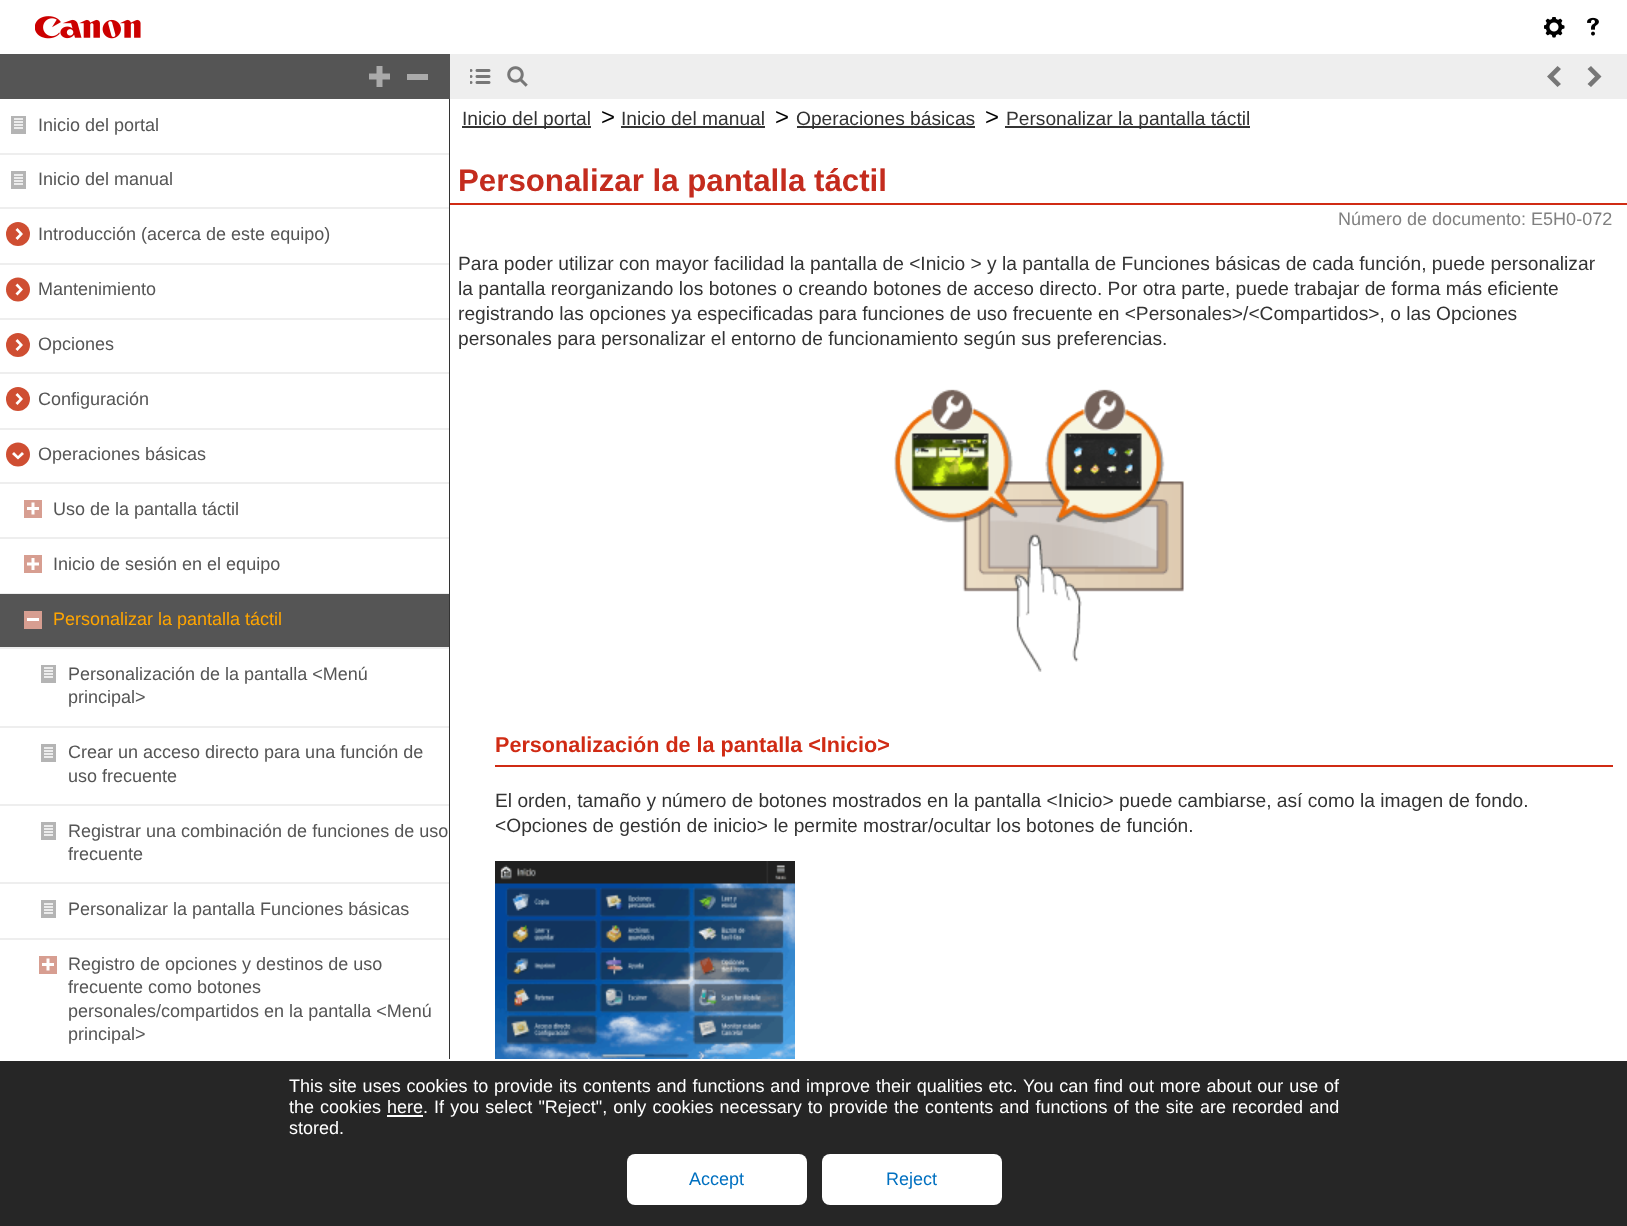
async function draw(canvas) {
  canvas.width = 1627;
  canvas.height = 1226;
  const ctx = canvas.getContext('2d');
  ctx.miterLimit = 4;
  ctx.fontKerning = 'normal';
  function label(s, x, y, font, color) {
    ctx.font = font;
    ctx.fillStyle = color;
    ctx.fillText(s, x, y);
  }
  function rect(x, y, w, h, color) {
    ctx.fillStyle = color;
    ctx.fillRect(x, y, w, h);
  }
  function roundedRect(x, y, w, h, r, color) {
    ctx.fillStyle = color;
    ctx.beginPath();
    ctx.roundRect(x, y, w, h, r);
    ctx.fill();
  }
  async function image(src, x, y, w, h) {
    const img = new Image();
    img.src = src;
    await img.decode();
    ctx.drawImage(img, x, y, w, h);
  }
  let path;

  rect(0, 0, 1627, 1226, '#fff');
  await image('assets/img1.png', 35, 16, 106, 23);
  await image('assets/img2.png', 1544, 17, 21, 21);
  await image('assets/img3.png', 1587, 17, 12, 19);
  rect(0, 54, 450, 45, '#555');
  await image('assets/img4.png', 369, 66, 21, 21);
  rect(407, 74, 21, 6, '#aaa');
  rect(450, 54, 1177, 45, '#eee');
  await image('assets/img5.png', 470, 69, 21, 15);
  await image('assets/img6.png', 507, 66, 21, 21);
  ctx.fillStyle = '#777';
  path = new Path2D('M1561 84L1553.5 76.5L1561 69L1557.5 66L1547 76.5L1557.5 87ZM1587.5 69L1595 76.5L1587.5 84L1591 87L1601.5 76.5L1591 66Z');
  ctx.fill(path);
  rect(449, 99, 1, 960, '#333');
  rect(0, 153, 449, 2, '#eee');
  await image('assets/img7.png', 11, 116, 15, 18);
  label('Inicio del portal', 38, 131, '18px Liberation Sans', '#555');
  rect(0, 207, 449, 2, '#eee');
  await image('assets/img8.png', 11, 171, 15, 18);
  label('Inicio del manual', 38, 185, '18px Liberation Sans', '#555');
  rect(0, 263, 449, 2, '#eee');
  ctx.fillStyle = '#cf4e32';
  ctx.beginPath();
  ctx.arc(18, 234, 12, 0, 2 * Math.PI);
  ctx.fill();
  ctx.fillStyle = '#fff';
  path = new Path2D('M15.5 230L19.5 234L15.5 238L17.5 240L23 234L17.5 228Z');
  ctx.fill(path);
  label('Introducción (acerca de este equipo)', 38, 240, '18px Liberation Sans', '#555');
  rect(0, 318, 449, 2, '#eee');
  ctx.fillStyle = '#cf4e32';
  ctx.beginPath();
  ctx.arc(18, 289.5, 12, 0, 2 * Math.PI);
  ctx.fill();
  ctx.fillStyle = '#fff';
  path = new Path2D('M15.5 285.5L19.5 289.5L15.5 293.5L17.5 295.5L23 289.5L17.5 283.5Z');
  ctx.fill(path);
  label('Mantenimiento', 38, 295, '18px Liberation Sans', '#555');
  rect(0, 372, 449, 2, '#eee');
  ctx.fillStyle = '#cf4e32';
  ctx.beginPath();
  ctx.arc(18, 345, 12, 0, 2 * Math.PI);
  ctx.fill();
  ctx.fillStyle = '#fff';
  path = new Path2D('M15.5 341L19.5 345L15.5 349L17.5 351L23 345L17.5 339Z');
  ctx.fill(path);
  label('Opciones', 38, 350, '18px Liberation Sans', '#555');
  rect(0, 428, 449, 2, '#eee');
  ctx.fillStyle = '#cf4e32';
  ctx.beginPath();
  ctx.arc(18, 399, 12, 0, 2 * Math.PI);
  ctx.fill();
  ctx.fillStyle = '#fff';
  path = new Path2D('M15.5 395L19.5 399L15.5 403L17.5 405L23 399L17.5 393Z');
  ctx.fill(path);
  label('Configuración', 38, 405, '18px Liberation Sans', '#555');
  rect(0, 482, 449, 2, '#eee');
  ctx.fillStyle = '#cf4e32';
  ctx.beginPath();
  ctx.arc(18, 454.5, 12, 0, 2 * Math.PI);
  ctx.fill();
  ctx.fillStyle = '#fff';
  path = new Path2D('M22 452L18 456L14 452L12 454L18 459.5L24 454Z');
  ctx.fill(path);
  label('Operaciones básicas', 38, 460, '18px Liberation Sans', '#555');
  rect(0, 537, 449, 2, '#eee');
  rect(24, 500, 18, 18, '#d79e91');
  path = new Path2D('M33 502.5V514.5');
  ctx.strokeStyle = '#fff';
  ctx.lineWidth = 3;
  ctx.stroke(path);
  rect(27, 507, 12, 3, '#fff');
  label('Uso de la pantalla táctil', 53, 515, '18px Liberation Sans', '#555');
  rect(0, 593, 449, 1, '#eee');
  rect(24, 555, 18, 18, '#d79e91');
  path = new Path2D('M33 558V570M27 564H39');
  ctx.stroke(path);
  label('Inicio de sesión en el equipo', 53, 570, '18px Liberation Sans', '#555');
  rect(0, 594, 449, 53, '#555');
  rect(0, 647, 449, 2, '#eee');
  rect(24, 611, 18, 18, '#d79e91');
  rect(27, 618, 12, 3, '#fff');
  label('Personalizar la pantalla táctil', 53, 625, '18px Liberation Sans', '#ffa500');
  rect(0, 726, 449, 2, '#eee');
  await image('assets/img7.png', 41, 665, 15, 18);
  label('Personalización de la pantalla <Menú', 68, 680, '18px Liberation Sans', '#555');
  label('principal>', 68, 703, '18px Liberation Sans', '#555');
  rect(0, 804, 449, 2, '#eee');
  await image('assets/img8.png', 41, 744, 15, 18);
  label('Crear un acceso directo para una función de', 68, 758, '18px Liberation Sans', '#555');
  label('uso frecuente', 68, 782, '18px Liberation Sans', '#555');
  rect(0, 882, 449, 2, '#eee');
  await image('assets/img8.png', 41, 822, 15, 18);
  label('Registrar una combinación de funciones de uso', 68, 837, '18px Liberation Sans', '#555');
  label('frecuente', 68, 860, '18px Liberation Sans', '#555');
  rect(0, 938, 449, 2, '#eee');
  await image('assets/img8.png', 41, 900, 15, 18);
  label('Personalizar la pantalla Funciones básicas', 68, 915, '18px Liberation Sans', '#555');
  rect(39, 956, 18, 18, '#d79e91');
  path = new Path2D('M48 958.5V970.5');
  ctx.stroke(path);
  rect(42, 963, 12, 3, '#fff');
  label('Registro de opciones y destinos de uso', 68, 970, '18px Liberation Sans', '#555');
  label('frecuente como botones', 68, 993, '18px Liberation Sans', '#555');
  label('personales/compartidos en la pantalla <Menú', 68, 1017, '18px Liberation Sans', '#555');
  label('principal>', 68, 1040, '18px Liberation Sans', '#555');
  rect(462, 126, 129, 2, '#333');
  label('Inicio del portal', 462, 125, '19.2px Liberation Sans', '#333');
  label('>', 601, 125, '24px Liberation Sans', '#000');
  label('Inicio del manual', 621, 125, '19.2px Liberation Sans', '#333');
  rect(621, 126, 144, 2, '#333');
  label('>', 775, 125, '24px Liberation Sans', '#000');
  rect(797, 126, 178, 2, '#333');
  label('Operaciones básicas', 796, 125, '19.2px Liberation Sans', '#333');
  label('>', 985, 125, '24px Liberation Sans', '#000');
  rect(1005, 126, 245, 2, '#333');
  label('Personalizar la pantalla táctil', 1006, 125, '19.2px Liberation Sans', '#333');
  rect(450, 203, 1177, 2, '#d02b14');
  label('Personalizar la pantalla táctil', 458, 191, 'bold 31.25px Liberation Sans', '#c42c1e');
  label('Número de documento: E5H0-072', 1338, 225, '18px Liberation Sans', '#808080');
  label('Para poder utilizar con mayor facilidad la pantalla de <Inicio > y la pantalla de Funciones básicas de cada función, puede personalizar', 458, 270, '19.2px Liberation Sans', '#333');
  label('la pantalla reorganizando los botones o creando botones de acceso directo. Por otra parte, puede trabajar de forma más eficiente', 458, 295, '19.2px Liberation Sans', '#333');
  label('registrando las opciones ya especificadas para funciones de uso frecuente en <Personales>/<Compartidos>, o las Opciones', 458, 320, '19.2px Liberation Sans', '#333');
  label('personales para personalizar el entorno de funcionamiento según sus preferencias.', 458, 345, '19.2px Liberation Sans', '#333');
  await image('assets/img9.png', 894, 389, 290, 283);
  rect(495, 765, 1118, 2, '#d02b14');
  label('Personalización de la pantalla <Inicio>', 495, 752, 'bold 21.6px Liberation Sans', '#d02b14');
  label('El orden, tamaño y número de botones mostrados en la pantalla <Inicio> puede cambiarse, así como la imagen de fondo.', 495, 807, '19.2px Liberation Sans', '#333');
  label('<Opciones de gestión de inicio> le permite mostrar/ocultar los botones de función.', 495, 832, '19.2px Liberation Sans', '#333');
  await image('assets/img10.png', 495, 861, 300, 198);
  rect(0, 1061, 1627, 165, '#262626');
  ctx.wordSpacing = '0.8px';
  label('This site uses cookies to provide its contents and functions and improve their qualities etc. You can find out more about our use of', 289, 1092, '18px Liberation Sans', '#fff');
  ctx.wordSpacing = '1px';
  label('the cookies', 289, 1113, '18px Liberation Sans', '#fff');
  ctx.wordSpacing = '0px';
  label('here', 387, 1113, '18px Liberation Sans', '#fff');
  rect(387, 1115, 36, 2, '#fff');
  ctx.wordSpacing = '1.1px';
  label('. If you select "Reject", only cookies necessary to provide the contents and functions of the site are recorded and', 423, 1113, '18px Liberation Sans', '#fff');
  ctx.wordSpacing = '0px';
  label('stored.', 289, 1134, '18px Liberation Sans', '#fff');
  roundedRect(627, 1154, 180, 51, 8, '#fff');
  label('Accept', 689, 1185, '18px Liberation Sans', '#0070c0');
  roundedRect(822, 1154, 180, 51, 8, '#fff');
  label('Reject', 886, 1185, '18px Liberation Sans', '#0070c0');
}

draw(document.querySelector('canvas'));
